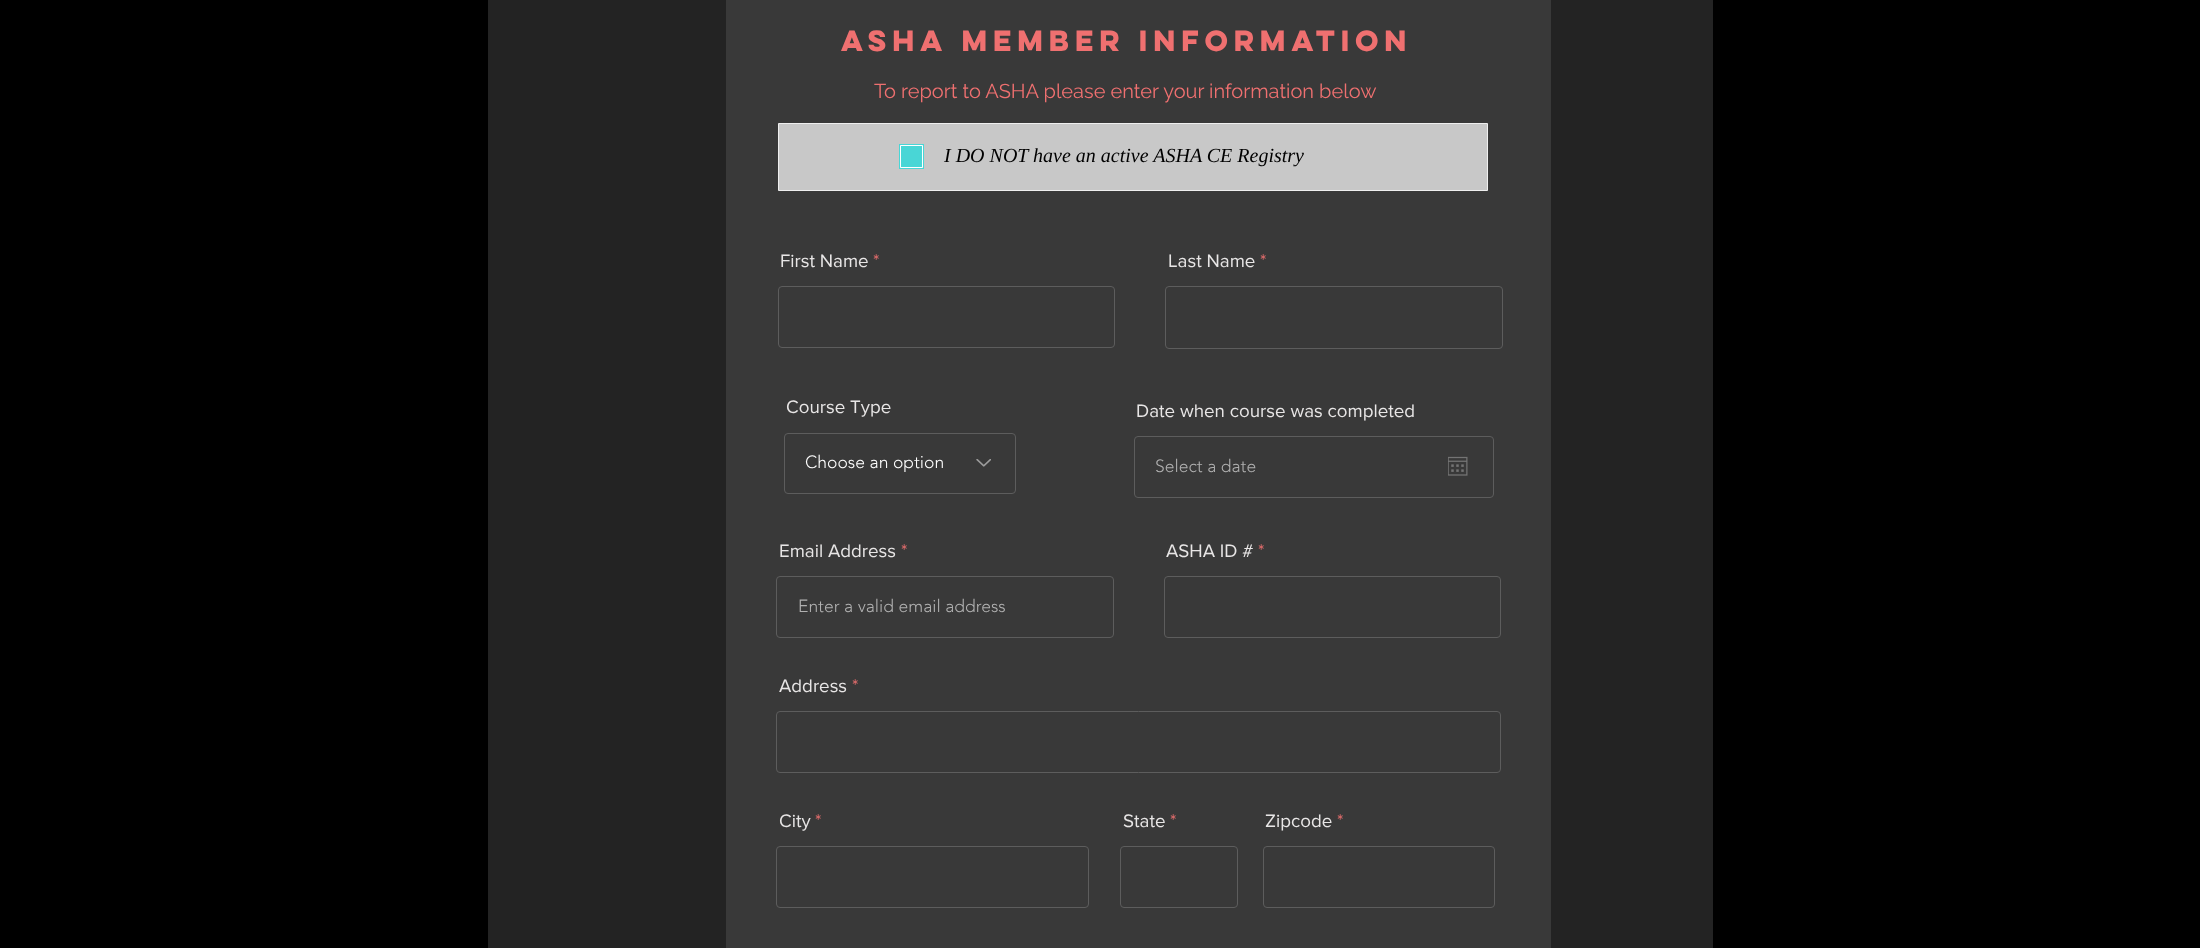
async function draw(canvas) {
  canvas.width = 2200;
  canvas.height = 948;
  const ctx = canvas.getContext('2d');
  ctx.miterLimit = 4;
  ctx.fontKerning = 'normal';
  function label(s, x, y, font, color) {
    ctx.font = font;
    ctx.fillStyle = color;
    ctx.fillText(s, x, y);
  }
  function rect(x, y, w, h, color) {
    ctx.fillStyle = color;
    ctx.fillRect(x, y, w, h);
  }
  async function image(src, x, y, w, h) {
    const img = new Image();
    img.src = src;
    await img.decode();
    ctx.drawImage(img, x, y, w, h);
  }

  rect(0, 0, 2200, 948, '#000');
  rect(488, 0, 1225, 948, '#232323');
  rect(726, 0, 825, 948, '#393939');
  label('ASHA MEMBER INFORMATION', 841, 51, 'bold 26.25px "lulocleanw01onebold"', '#ef7070');
  label('To report to ASHA please enter your information below', 874, 98, '20px Raleway', '#ef7070');
  ctx.fillStyle = '#c8c8c8';
  ctx.beginPath();
  ctx.rect(778.5, 123.5, 709, 67);
  ctx.fill();
  ctx.strokeStyle = '#efefef';
  ctx.stroke();
  ctx.strokeStyle = '#49d6d6';
  ctx.strokeRect(899.5, 144.5, 24, 24);
  ctx.fillStyle = '#49d6d6';
  ctx.beginPath();
  ctx.rect(900.5, 145.5, 22, 22);
  ctx.fill();
  ctx.strokeStyle = '#fff';
  ctx.stroke();
  label('I DO NOT have an active ASHA CE Registry', 944, 162, 'italic 20px Liberation Serif', '#000');
  label('First Name', 780, 267, '18.75px "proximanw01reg"', '#e8e6e6');
  label('*', 873, 267, '18.75px "proximanw01reg"', '#ef7070');
  ctx.beginPath();
  ctx.roundRect(778.5, 286.5, 336, 61, 3.5);
  ctx.strokeStyle = '#5d5d5d';
  ctx.stroke();
  label('Last Name', 1168, 267, '18.75px "proximanw01reg"', '#e8e6e6');
  label('*', 1260, 267, '18.75px "proximanw01reg"', '#ef7070');
  ctx.beginPath();
  ctx.roundRect(1165.5, 286.5, 337, 62, 3.5);
  ctx.stroke();
  label('Course Type', 786, 413, '18.75px "proximanw01reg"', '#e8e6e6');
  ctx.beginPath();
  ctx.roundRect(784.5, 433.5, 231, 60, 3.5);
  ctx.stroke();
  label('Choose an option', 805, 468, '300 17.5px "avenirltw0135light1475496"', '#fff');
  await image('assets/img1.png', 976, 459, 15, 8);
  label('Date when course was completed', 1136, 417, '18.75px "proximanw01reg"', '#e8e6e6');
  ctx.beginPath();
  ctx.roundRect(1134.5, 436.5, 359, 61, 3.5);
  ctx.stroke();
  label('Select a date', 1155, 472, '300 17.5px "avenirltw0135light1475496"', '#b0b0b0');
  await image('assets/img2.png', 1448, 456, 20, 20);
  label('Email Address', 779, 557, '18.75px "proximanw01reg"', '#e8e6e6');
  label('*', 901, 557, '18.75px "proximanw01reg"', '#ef7070');
  ctx.beginPath();
  ctx.roundRect(776.5, 576.5, 337, 61, 3.5);
  ctx.stroke();
  label('Enter a valid email address', 798, 612, '300 17.5px "avenirltw0135light1475496"', '#b0b0b0');
  label('ASHA ID #', 1166, 557, '18.75px "proximanw01reg"', '#e8e6e6');
  label('*', 1258, 557, '18.75px "proximanw01reg"', '#ef7070');
  ctx.beginPath();
  ctx.roundRect(1164.5, 576.5, 336, 61, 3.5);
  ctx.stroke();
  label('Address', 779, 692, '18.75px "proximanw01reg"', '#e8e6e6');
  label('*', 852, 692, '18.75px "proximanw01reg"', '#ef7070');
  ctx.beginPath();
  ctx.roundRect(776.5, 711.5, 724, 61, 3.5);
  ctx.stroke();
  label('City', 779, 827, '18.75px "proximanw01reg"', '#e8e6e6');
  label('*', 815, 827, '18.75px "proximanw01reg"', '#ef7070');
  ctx.beginPath();
  ctx.roundRect(776.5, 846.5, 312, 61, 3.5);
  ctx.stroke();
  label('State', 1123, 827, '18.75px "proximanw01reg"', '#e8e6e6');
  label('*', 1170, 827, '18.75px "proximanw01reg"', '#ef7070');
  ctx.beginPath();
  ctx.roundRect(1120.5, 846.5, 117, 61, 3.5);
  ctx.stroke();
  label('Zipcode', 1265, 827, '18.75px "proximanw01reg"', '#e8e6e6');
  label('*', 1337, 827, '18.75px "proximanw01reg"', '#ef7070');
  ctx.beginPath();
  ctx.roundRect(1263.5, 846.5, 231, 61, 3.5);
  ctx.stroke();
}

draw(document.querySelector('canvas'));
